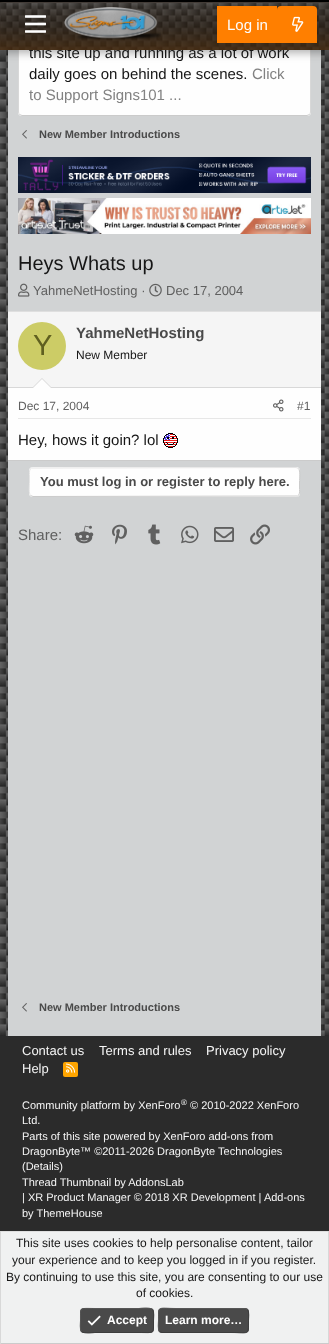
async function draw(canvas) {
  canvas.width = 329;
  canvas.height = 1344;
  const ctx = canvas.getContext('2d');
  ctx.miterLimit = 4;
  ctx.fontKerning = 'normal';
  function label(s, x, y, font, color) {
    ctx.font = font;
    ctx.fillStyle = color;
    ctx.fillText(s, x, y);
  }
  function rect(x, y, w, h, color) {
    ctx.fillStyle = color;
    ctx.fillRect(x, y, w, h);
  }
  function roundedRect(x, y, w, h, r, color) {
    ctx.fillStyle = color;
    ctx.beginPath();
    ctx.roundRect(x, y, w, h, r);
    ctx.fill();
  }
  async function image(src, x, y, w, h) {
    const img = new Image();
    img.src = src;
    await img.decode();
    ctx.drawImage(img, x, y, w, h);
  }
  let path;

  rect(0, 0, 329, 1344, '#fff');
  await image('assets/img1.png', 0, 50, 329, 986);
  rect(8, 50, 313, 986, '#d1d3d4');
  roundedRect(18, -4, 293, 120, 4, '#fefefe');
  path = new Path2D('M309.5-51.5C310-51 310.5-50 310.5-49V112C310.5 113 310 114 309.5 114.5');
  ctx.strokeStyle = '#d8d8d8';
  ctx.stroke(path);
  path = new Path2D('M309.5 114.5L307 115.5H22L19.5 114.5');
  ctx.strokeStyle = '#cbcbcb';
  ctx.stroke(path);
  path = new Path2D('M19.5 114.5C19 114 18.5 113 18.5 112V-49C18.5-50 19-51 19.5-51.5');
  ctx.strokeStyle = '#d8d8d8';
  ctx.stroke(path);
  ctx.fillStyle = '#0000004d';
  ctx.filter = 'blur(4px)';
  ctx.beginPath();
  ctx.rect(-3, -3, 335, 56);
  ctx.fill();
  ctx.filter = 'none';
  label('this site up and running as a lot of work', 29, 58, '15px Liberation Sans', '#161616');
  await image('assets/img2.png', 0, 0, 329, 50);
  await image('assets/img3.png', 25, 15, 21, 18);
  await image('assets/img4.png', 64, 7, 97, 33);
  rect(217, 6, 60, 37, '#ff7f00');
  label('Log in', 227, 30, '15px Liberation Sans', '#fefefe');
  ctx.fillStyle = '#ff7f00';
  ctx.beginPath();
  ctx.roundRect(277, 6, 40, 37, [4, 4, 0, 0]);
  ctx.fill();
  await image('assets/img5.png', 292, 16, 12, 16);
  label('daily goes on behind the scenes.', 29, 79, '15px Liberation Sans', '#161616');
  label('Click', 252, 79, '15px Liberation Sans', '#828282');
  label('to Support Signs101 ...', 29, 100, '15px Liberation Sans', '#828282');
  await image('assets/img6.png', 22, 130, 5, 9);
  label('New Member Introductions', 39, 138, 'bold 11px Liberation Sans', '#4a4a4a');
  await image('assets/img7.png', 18, 157, 293, 36);
  await image('assets/img8.png', 18, 198, 293, 36);
  label('Heys Whats up', 18, 270, '20px Liberation Sans', '#161616');
  await image('assets/img9.png', 18, 283, 12, 14);
  label('YahmeNetHosting ·', 33, 295, '13px Liberation Sans', '#606060');
  await image('assets/img10.png', 149, 283, 13, 14);
  label('Dec 17, 2004', 166, 295, '13px Liberation Sans', '#606060');
  rect(8, 388, 313, 72, '#fefefe');
  rect(8, 311, 313, 1, '#dfdfdf');
  rect(8, 460, 313, 1, '#cbcbcb');
  rect(8, 312, 313, 75, '#f5f5f5');
  rect(8, 387, 313, 1, '#d8d8d8');
  ctx.fillStyle = '#cc6';
  ctx.beginPath();
  ctx.arc(42, 346, 24, 0, 2 * Math.PI);
  ctx.fill();
  label('Y', 33, 355, '29px Liberation Sans', '#606020');
  label('YahmeNetHosting', 76, 338, 'bold 15px Liberation Sans', '#4a4a4a');
  label('New Member', 76, 359, '12px Liberation Sans', '#161616');
  ctx.fillStyle = '#d8d8d8';
  path = new Path2D('M52 388H32L42 378Z');
  ctx.fill(path);
  ctx.fillStyle = '#fefefe';
  path = new Path2D('M51 388H33L42 379Z');
  ctx.fill(path);
  rect(18, 418, 293, 1, '#e7e7e7');
  label('Dec 17, 2004', 18, 410, '12px Liberation Sans', '#606060');
  await image('assets/img11.png', 273, 399, 11, 13);
  label('#1', 297, 410, '12px Liberation Sans', '#606060');
  label('Hey, hows it goin? lol', 18, 445, '15px Liberation Sans', '#161616');
  await image('assets/img12.png', 163, 433, 15, 15);
  roundedRect(29, 467, 271, 30, 4, '#fefefe');
  path = new Path2D('M298.5 468.5C300.5 470.5 299.5 479 299.5 482V489.5C299.5 491.5 300 495 297.5 496L33 496.5L30.5 495.5');
  ctx.strokeStyle = '#cbcbcb';
  ctx.stroke(path);
  path = new Path2D('M30.5 495.5C28.5 493.5 29.5 485 29.5 482V474.5C29.5 472.5 29 469 31.5 468L296 467.5L298.5 468.5');
  ctx.strokeStyle = '#e5e5e5';
  ctx.stroke(path);
  label('You must log in or register to reply here.', 40, 486, 'bold 13px Liberation Sans', '#4a4a4a');
  label('Share:', 18, 540, '15px Liberation Sans', '#606060');
  await image('assets/img13.png', 74, 525, 20, 19);
  await image('assets/img14.png', 112, 524, 15, 21);
  await image('assets/img15.png', 148, 524, 13, 21);
  await image('assets/img16.png', 181, 525, 18, 19);
  await image('assets/img17.png', 214, 527, 20, 15);
  await image('assets/img18.png', 250, 524, 20, 21);
  await image('assets/img6.png', 22, 1003, 5, 9);
  label('New Member Introductions', 39, 1011, 'bold 11px Liberation Sans', '#4a4a4a');
  rect(0, 1036, 329, 195, '#2b2b2b');
  label('Contact us', 22, 1055, '13px Liberation Sans', '#f5f5f5');
  label('Terms and rules', 99, 1055, '13px Liberation Sans', '#f5f5f5');
  label('Privacy policy', 206, 1055, '13px Liberation Sans', '#f5f5f5');
  label('Help', 22, 1073, '13px Liberation Sans', '#f5f5f5');
  roundedRect(63, 1062, 15, 15, 2, '#ffa500');
  await image('assets/img19.png', 66, 1063, 10, 10);
  label('Community platform by XenForo', 22, 1109, '11px Liberation Sans', '#f5f5f5');
  label('®', 181, 1105, '8px Liberation Sans', '#f5f5f5');
  label('© 2010-2022 XenForo', 190, 1109, '11px Liberation Sans', '#f5f5f5');
  label('Ltd.', 22, 1124, '11px Liberation Sans', '#f5f5f5');
  label('Parts of this site powered by XenForo add-ons from', 22, 1140, '11px Liberation Sans', '#f5f5f5');
  label('DragonByte™ ©2011-2026 DragonByte Technologies', 22, 1155, '11px Liberation Sans', '#f5f5f5');
  label('(Details)', 22, 1170, '11px Liberation Sans', '#f5f5f5');
  label('Thread Thumbnail by AddonsLab', 22, 1186, '11px Liberation Sans', '#f5f5f5');
  label('| XR Product Manager © 2018 XR Development | Add-ons', 22, 1201, '11px Liberation Sans', '#f5f5f5');
  label('by ThemeHouse', 22, 1217, '11px Liberation Sans', '#f5f5f5');
  rect(1, 1232, 327, 111, '#f0f1f1');
  rect(0, 1231, 329, 1, '#dfdfdf');
  rect(328, 1231, 1, 113, '#d8d8d8');
  rect(0, 1343, 329, 1, '#cbcbcb');
  rect(0, 1231, 1, 113, '#d8d8d8');
  label('This site uses cookies to help personalise content, tailor', 16, 1247, '12px Liberation Sans', '#161616');
  label('your experience and to keep you logged in if you register.', 12, 1264, '12px Liberation Sans', '#161616');
  label('By continuing to use this site, you are consenting to our use', 6, 1281, '12px Liberation Sans', '#161616');
  label('of cookies.', 136, 1297, '12px Liberation Sans', '#161616');
  roundedRect(80, 1308, 74, 25, 4, '#4a4a4a');
  path = new Path2D('M152.5 1309.5C154.5 1312 153.5 1318 153.5 1320.5C153.5 1334.5 154.5 1332.5 139 1332.5H95C94.5 1332.5 84 1334 81.5 1331.5');
  ctx.strokeStyle = '#3d3d3d';
  ctx.stroke(path);
  path = new Path2D('M81.5 1331.5C79.5 1329 80.5 1323 80.5 1320.5C80.5 1306.5 79.5 1308.5 95 1308.5H139C139.5 1308.5 150 1307 152.5 1309.5');
  ctx.strokeStyle = '#575757';
  ctx.stroke(path);
  await image('assets/img20.png', 87, 1315, 14, 11);
  label('Accept', 107, 1324, 'bold 12px Liberation Sans', '#fefefe');
  roundedRect(158, 1308, 91, 25, 4, '#4a4a4a');
  path = new Path2D('M247.5 1309.5C249.5 1312 248.5 1318 248.5 1320.5C248.5 1336 249 1332.5 231 1332.5H162L159.5 1331.5');
  ctx.strokeStyle = '#3d3d3d';
  ctx.stroke(path);
  path = new Path2D('M159.5 1331.5C157.5 1329 158.5 1323 158.5 1320.5C158.5 1305 158 1308.5 176 1308.5H245L247.5 1309.5');
  ctx.strokeStyle = '#575757';
  ctx.stroke(path);
  label('Learn more…', 165, 1324, 'bold 12px Liberation Sans', '#fefefe');
}

draw(document.querySelector('canvas'));
